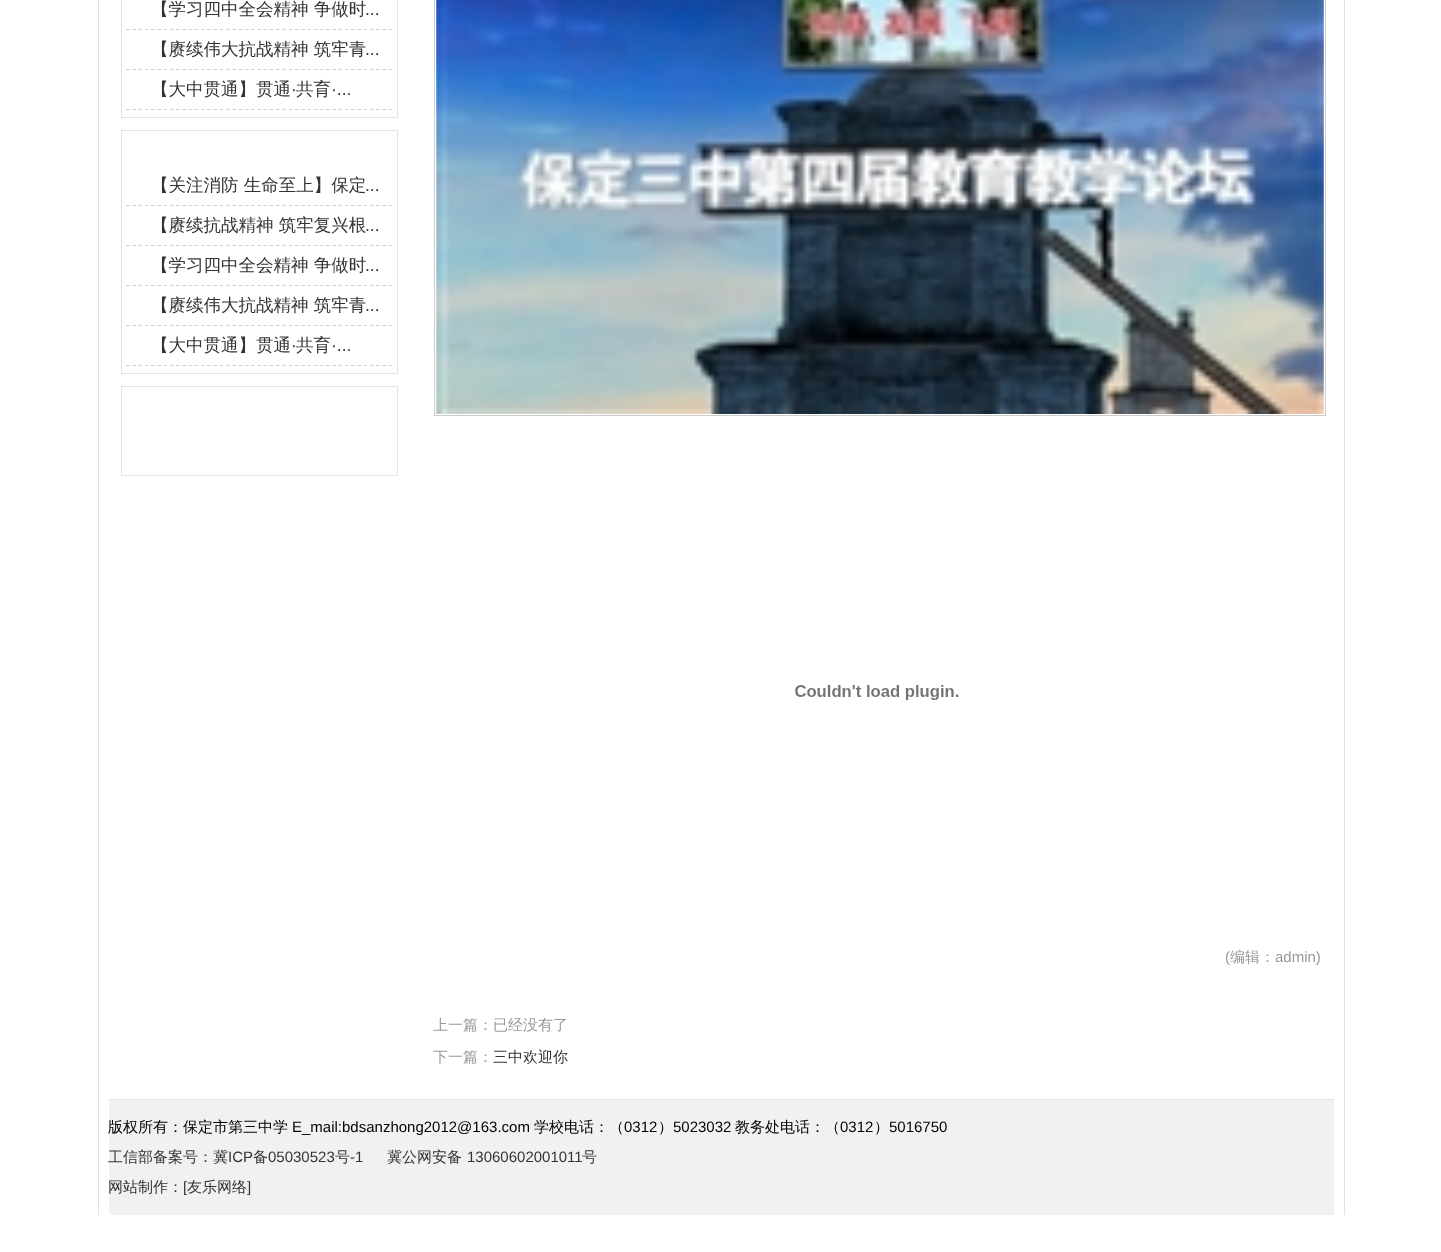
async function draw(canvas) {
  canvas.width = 1441;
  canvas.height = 1252;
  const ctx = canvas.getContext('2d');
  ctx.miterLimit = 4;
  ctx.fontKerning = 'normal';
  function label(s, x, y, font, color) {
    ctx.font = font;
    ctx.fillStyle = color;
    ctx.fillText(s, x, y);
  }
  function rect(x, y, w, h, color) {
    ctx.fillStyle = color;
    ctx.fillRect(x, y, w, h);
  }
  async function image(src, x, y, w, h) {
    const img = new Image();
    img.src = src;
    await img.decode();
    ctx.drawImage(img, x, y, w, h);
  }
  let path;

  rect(0, 0, 1441, 1252, '#fff');
  rect(1344, 0, 1, 1215, '#e1e1e1');
  rect(98, 0, 1, 1215, '#e1e1e1');
  ctx.strokeStyle = '#e3e3e3';
  ctx.strokeRect(121.5, -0.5, 276, 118);
  path = new Path2D('M126 29.5H392.5');
  ctx.strokeStyle = '#d3d3d3';
  ctx.lineWidth = 1.2;
  ctx.setLineDash([3.75, 2.5]);
  ctx.stroke(path);
  label('【学习四中全会精神 争做时', 151, 15, '500 17.5px WenQuanYi Zen Hei', '#333');
  label('...', 365, 15, '17.5px Liberation Sans', '#333');
  path = new Path2D('M126 69.5H392.5');
  ctx.stroke(path);
  label('【赓续伟大抗战精神 筑牢青', 151, 55, '500 17.5px WenQuanYi Zen Hei', '#333');
  label('...', 365, 55, '17.5px Liberation Sans', '#333');
  path = new Path2D('M126 109.5H392.5');
  ctx.stroke(path);
  label('【大中贯通】贯通', 151, 95, '500 17.5px WenQuanYi Zen Hei', '#333');
  label('·', 291, 95, '17.5px Liberation Sans', '#333');
  label('共育', 296, 95, '500 17.5px WenQuanYi Zen Hei', '#333');
  label('·...', 331, 95, '17.5px Liberation Sans', '#333');
  ctx.strokeStyle = '#e3e3e3';
  ctx.lineWidth = 1;
  ctx.setLineDash([]);
  ctx.strokeRect(121.5, 130.5, 276, 243);
  path = new Path2D('M126 205.5H392.5');
  ctx.strokeStyle = '#d3d3d3';
  ctx.lineWidth = 1.2;
  ctx.setLineDash([3.75, 2.5]);
  ctx.stroke(path);
  label('【关注消防 生命至上】保定', 151, 191, '500 17.5px WenQuanYi Zen Hei', '#333');
  label('...', 365, 191, '17.5px Liberation Sans', '#333');
  path = new Path2D('M126 245.5H392.5');
  ctx.stroke(path);
  label('【赓续抗战精神 筑牢复兴根', 151, 231, '500 17.5px WenQuanYi Zen Hei', '#333');
  label('...', 365, 231, '17.5px Liberation Sans', '#333');
  path = new Path2D('M126 285.5H392.5');
  ctx.stroke(path);
  label('【学习四中全会精神 争做时', 151, 271, '500 17.5px WenQuanYi Zen Hei', '#333');
  label('...', 365, 271, '17.5px Liberation Sans', '#333');
  path = new Path2D('M126 325.5H392.5');
  ctx.stroke(path);
  label('【赓续伟大抗战精神 筑牢青', 151, 311, '500 17.5px WenQuanYi Zen Hei', '#333');
  label('...', 365, 311, '17.5px Liberation Sans', '#333');
  path = new Path2D('M126 365.5H392.5');
  ctx.stroke(path);
  label('【大中贯通】贯通', 151, 351, '500 17.5px WenQuanYi Zen Hei', '#333');
  label('·', 291, 351, '17.5px Liberation Sans', '#333');
  label('共育', 296, 351, '500 17.5px WenQuanYi Zen Hei', '#333');
  label('·...', 331, 351, '17.5px Liberation Sans', '#333');
  ctx.strokeStyle = '#e3e3e3';
  ctx.lineWidth = 1;
  ctx.setLineDash([]);
  ctx.strokeRect(121.5, 386.5, 276, 89);
  ctx.strokeStyle = '#ccc';
  ctx.strokeRect(434.5, -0.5, 891, 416);
  await image('assets/img1.png', 436, 0, 888, 414);
  await image('assets/img2.png', 795, 685, 164, 15);
  label('(', 1225, 962, '15px Liberation Sans', '#999');
  label('编辑：', 1230, 962, '500 15px WenQuanYi Zen Hei', '#999');
  label('admin)', 1275, 962, '15px Liberation Sans', '#999');
  label('上一篇：已经没有了', 433, 1030, '500 15px WenQuanYi Zen Hei', '#999');
  label('下一篇：', 433, 1062, '500 15px WenQuanYi Zen Hei', '#999');
  label('三中欢迎你', 493, 1062, '500 15px WenQuanYi Zen Hei', '#333');
  rect(109, 1100, 1225, 115, '#f1f1f1');
  rect(109, 1099, 1225, 1, '#e3e3e3');
  label('版权所有：保定市第三中学', 108, 1132, '500 15px WenQuanYi Zen Hei', '#000');
  label('E_mail:bdsanzhong2012@163.com', 292, 1132, '15px Liberation Sans', '#000');
  label('学校电话：（', 534, 1132, '500 15px WenQuanYi Zen Hei', '#000');
  label('0312', 624, 1132, '15px Liberation Sans', '#000');
  label('）', 658, 1132, '500 15px WenQuanYi Zen Hei', '#000');
  label('5023032', 673, 1132, '15px Liberation Sans', '#000');
  label('教务处电话：（', 735, 1132, '500 15px WenQuanYi Zen Hei', '#000');
  label('0312', 840, 1132, '15px Liberation Sans', '#000');
  label('）', 874, 1132, '500 15px WenQuanYi Zen Hei', '#000');
  label('5016750', 889, 1132, '15px Liberation Sans', '#000');
  label('工信部备案号：冀', 108, 1162, '500 15px WenQuanYi Zen Hei', '#333');
  label('ICP', 228, 1162, '15px Liberation Sans', '#333');
  label('备', 253, 1162, '500 15px WenQuanYi Zen Hei', '#333');
  label('05030523', 268, 1162, '15px Liberation Sans', '#333');
  label('号', 335, 1162, '500 15px WenQuanYi Zen Hei', '#333');
  label('-1', 350, 1162, '15px Liberation Sans', '#333');
  label('冀公网安备', 387, 1162, '500 15px WenQuanYi Zen Hei', '#333');
  label('13060602001011', 467, 1162, '15px Liberation Sans', '#333');
  label('号', 582, 1162, '500 15px WenQuanYi Zen Hei', '#333');
  label('网站制作：', 108, 1192, '500 15px WenQuanYi Zen Hei', '#333');
  label('[', 183, 1192, '15px Liberation Sans', '#333');
  label('友乐网络', 187, 1192, '500 15px WenQuanYi Zen Hei', '#333');
  label(']', 247, 1192, '15px Liberation Sans', '#333');
}

draw(document.querySelector('canvas'));
